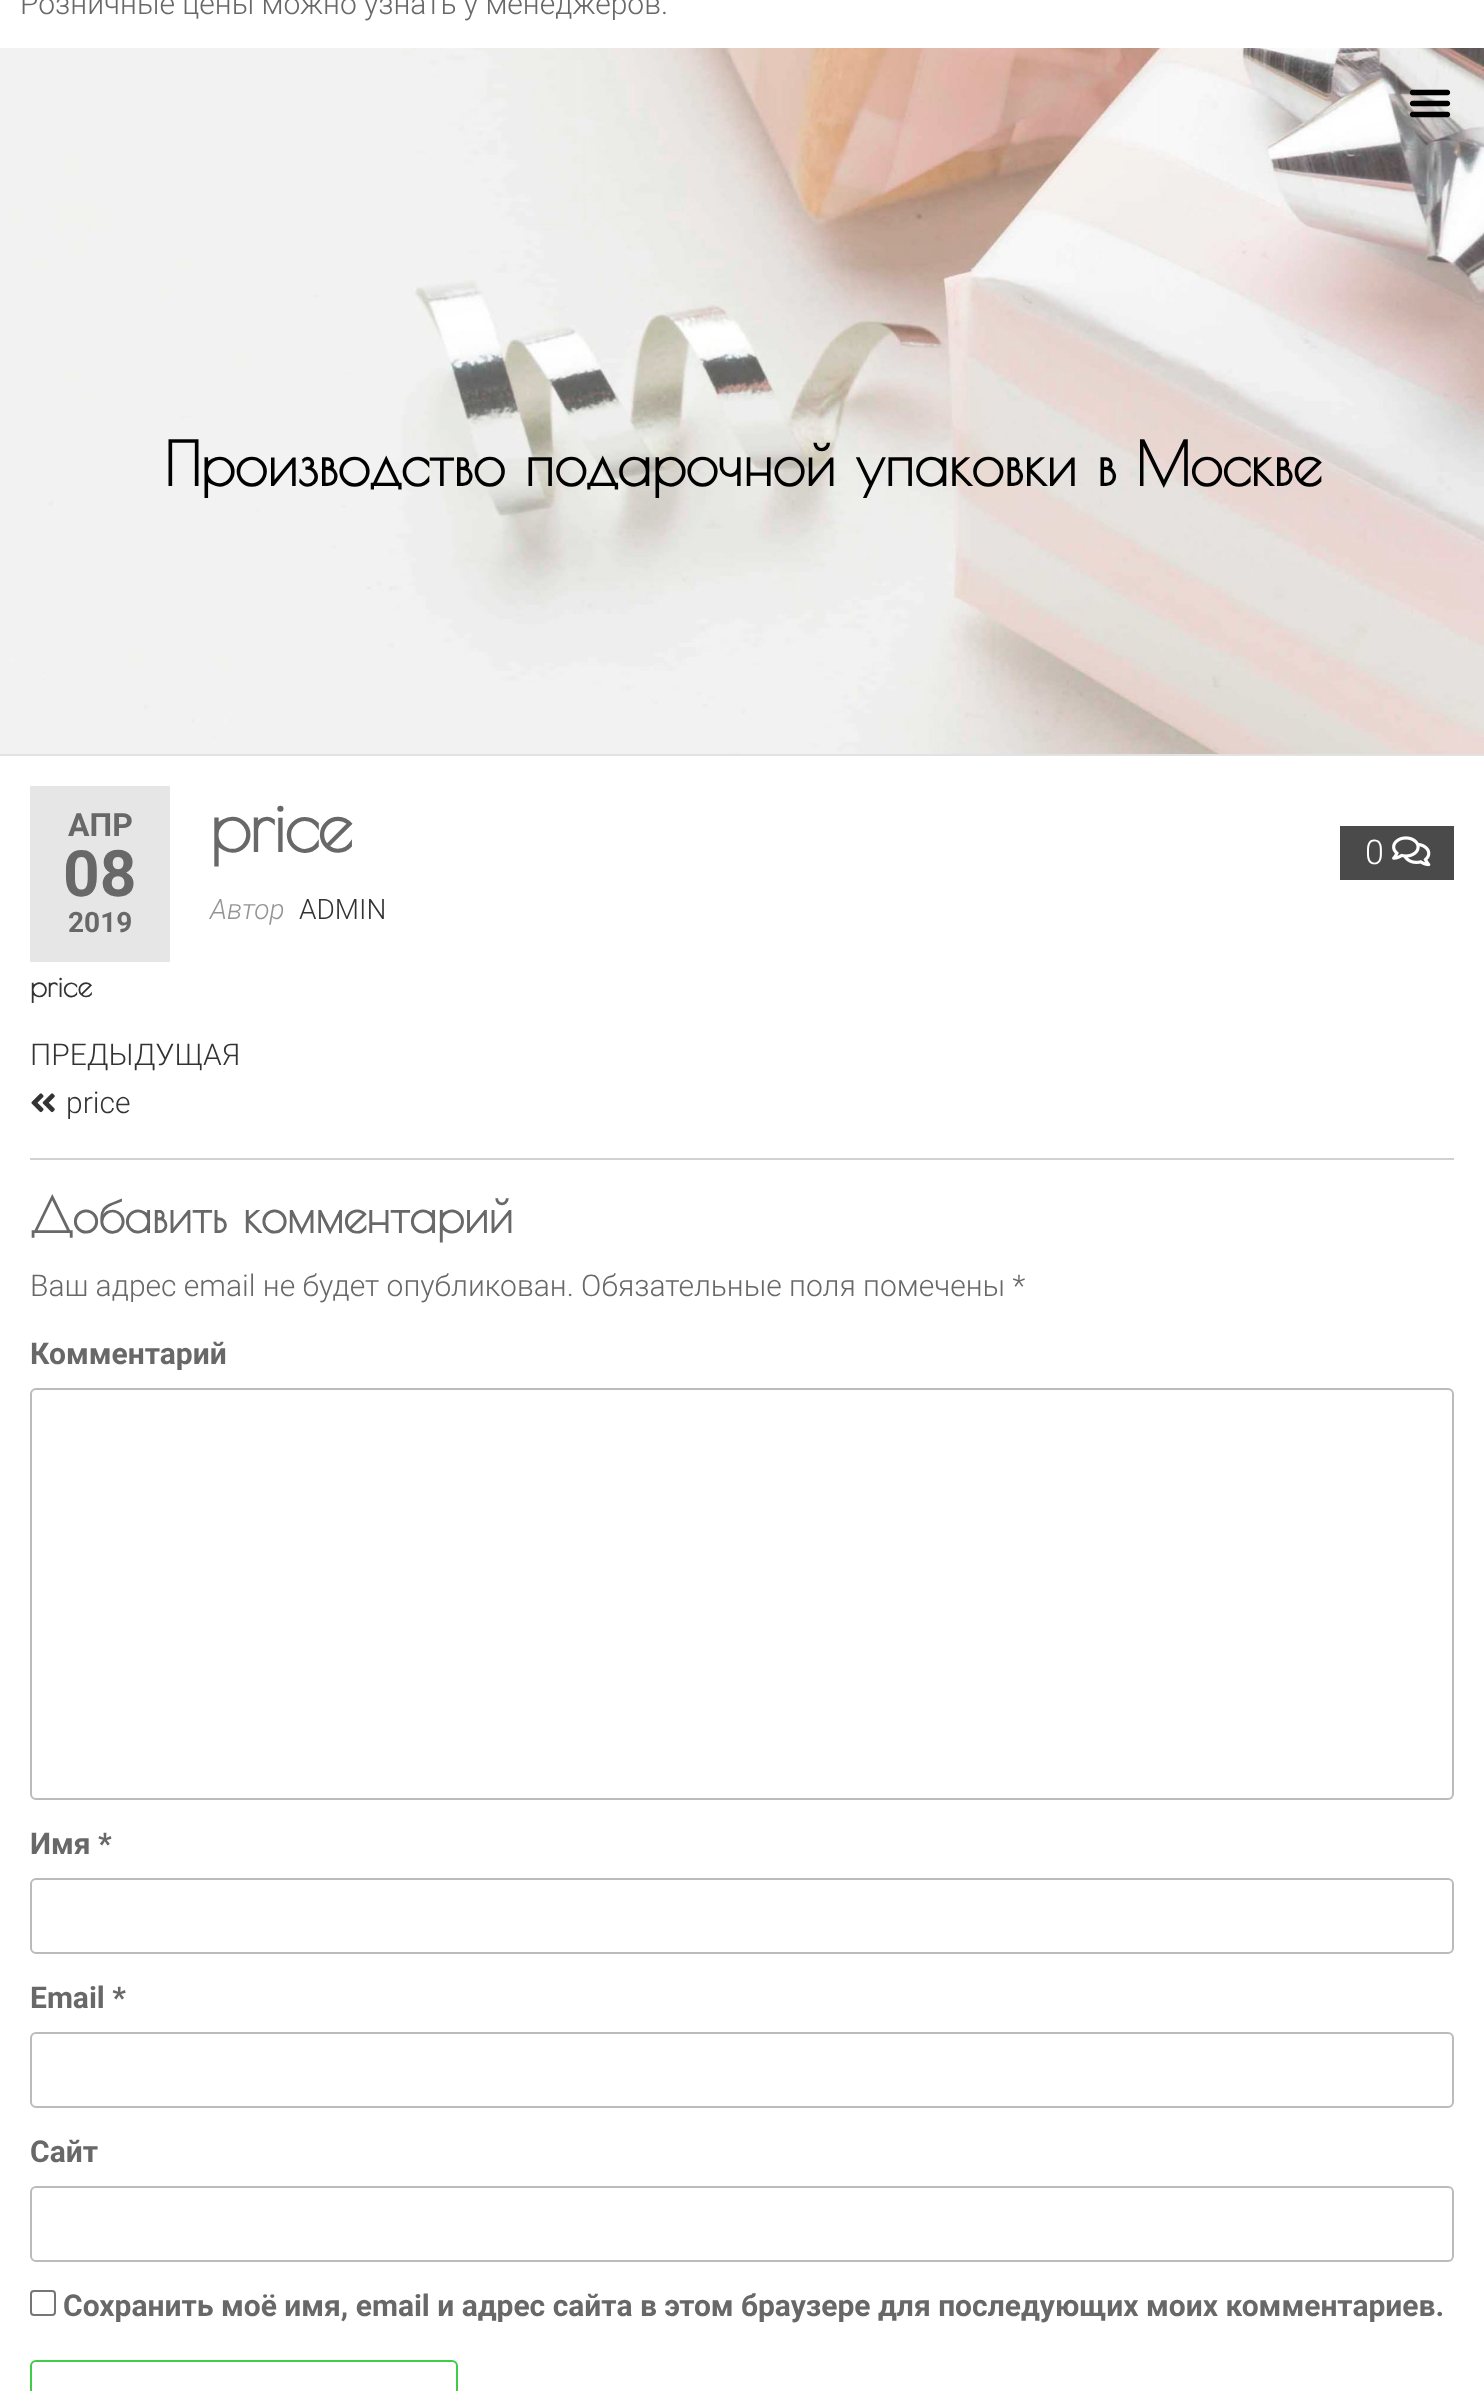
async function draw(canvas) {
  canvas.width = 1484;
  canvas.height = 2391;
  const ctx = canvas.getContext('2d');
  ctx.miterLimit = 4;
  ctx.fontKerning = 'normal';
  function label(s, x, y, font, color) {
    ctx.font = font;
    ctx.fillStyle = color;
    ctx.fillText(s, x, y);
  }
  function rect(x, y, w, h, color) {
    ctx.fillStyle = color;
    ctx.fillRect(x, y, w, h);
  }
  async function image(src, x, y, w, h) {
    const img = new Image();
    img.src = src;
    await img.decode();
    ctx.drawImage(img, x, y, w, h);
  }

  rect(0, 0, 1484, 2391, '#fff');
  label('Розничные цены можно узнать у менеджеров.', 20, 14, '300 30px Roboto', '#686868');
  await image('assets/img1.png', 0, 48, 1484, 706);
  await image('assets/img2.png', 1409, 89, 42, 29);
  ctx.letterSpacing = '-1.2px';
  label('Производство подарочной упаковки в Москве', 164, 486, 'bold 60px Poiret One', '#000');
  rect(0, 754, 1484, 2, '#e2e2e2');
  ctx.letterSpacing = '-1.5px';
  label('price', 210, 852, 'bold 72px "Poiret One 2"', '#686868');
  rect(30, 786, 140, 176, '#e6e6e6');
  ctx.letterSpacing = '0px';
  label('АПР', 68, 836, 'bold 32px Roboto', '#686868');
  label('08', 63, 896, 'bold 64px Roboto', '#686868');
  label('2019', 68, 932, 'bold 28px Roboto', '#686868');
  rect(1340, 826, 114, 54, '#4a4a4a');
  label('0', 1365, 864, '300 34px Roboto', '#fff');
  await image('assets/img3.png', 1392, 836, 39, 31);
  label('Автор', 210, 919, 'italic 300 28px Roboto', '#959595');
  label('ADMIN', 299, 919, '300 28px Roboto', '#333');
  label('price', 30, 997, 'bold 30px "Poiret One 2"', '#333');
  rect(30, 1158, 1424, 2, '#d1d1d1');
  label('ПРЕДЫДУЩАЯ', 30, 1065, '300 30px Roboto', '#333');
  await image('assets/img4.png', 31, 1093, 24, 20);
  label('price', 66, 1113, '300 30px Roboto', '#333');
  ctx.letterSpacing = '-1px';
  label('Добавить комментарий', 30, 1233, 'bold 48px "Poiret One 2"', '#686868');
  ctx.letterSpacing = '0px';
  label('Ваш адрес email не будет опубликован. Обязательные поля помечены *', 30, 1296, '300 30px Roboto', '#686868');
  label('Комментарий', 30, 1364, 'bold 30px Roboto', '#686868');
  ctx.beginPath();
  ctx.roundRect(31, 1389, 1422, 410, 5);
  ctx.strokeStyle = '#bbb';
  ctx.lineWidth = 2;
  ctx.stroke();
  label('Имя *', 30, 1854, 'bold 30px Roboto', '#686868');
  ctx.beginPath();
  ctx.roundRect(31, 1879, 1422, 74, 5);
  ctx.stroke();
  label('Email *', 30, 2008, 'bold 30px Roboto', '#686868');
  ctx.beginPath();
  ctx.roundRect(31, 2033, 1422, 74, 5);
  ctx.stroke();
  label('Сайт', 30, 2162, 'bold 30px Roboto', '#686868');
  ctx.beginPath();
  ctx.roundRect(31, 2187, 1422, 74, 5);
  ctx.stroke();
  ctx.beginPath();
  ctx.roundRect(31, 2291, 24, 24, 3);
  ctx.strokeStyle = '#767676';
  ctx.stroke();
  label('Сохранить моё имя, email и адрес сайта в этом браузере для последующих моих комментариев.', 63, 2316, 'bold 30px Roboto', '#686868');
  ctx.beginPath();
  ctx.roundRect(31, 2361, 426, 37, 5);
  ctx.strokeStyle = '#3fcc46';
  ctx.stroke();
}

draw(document.querySelector('canvas'));
